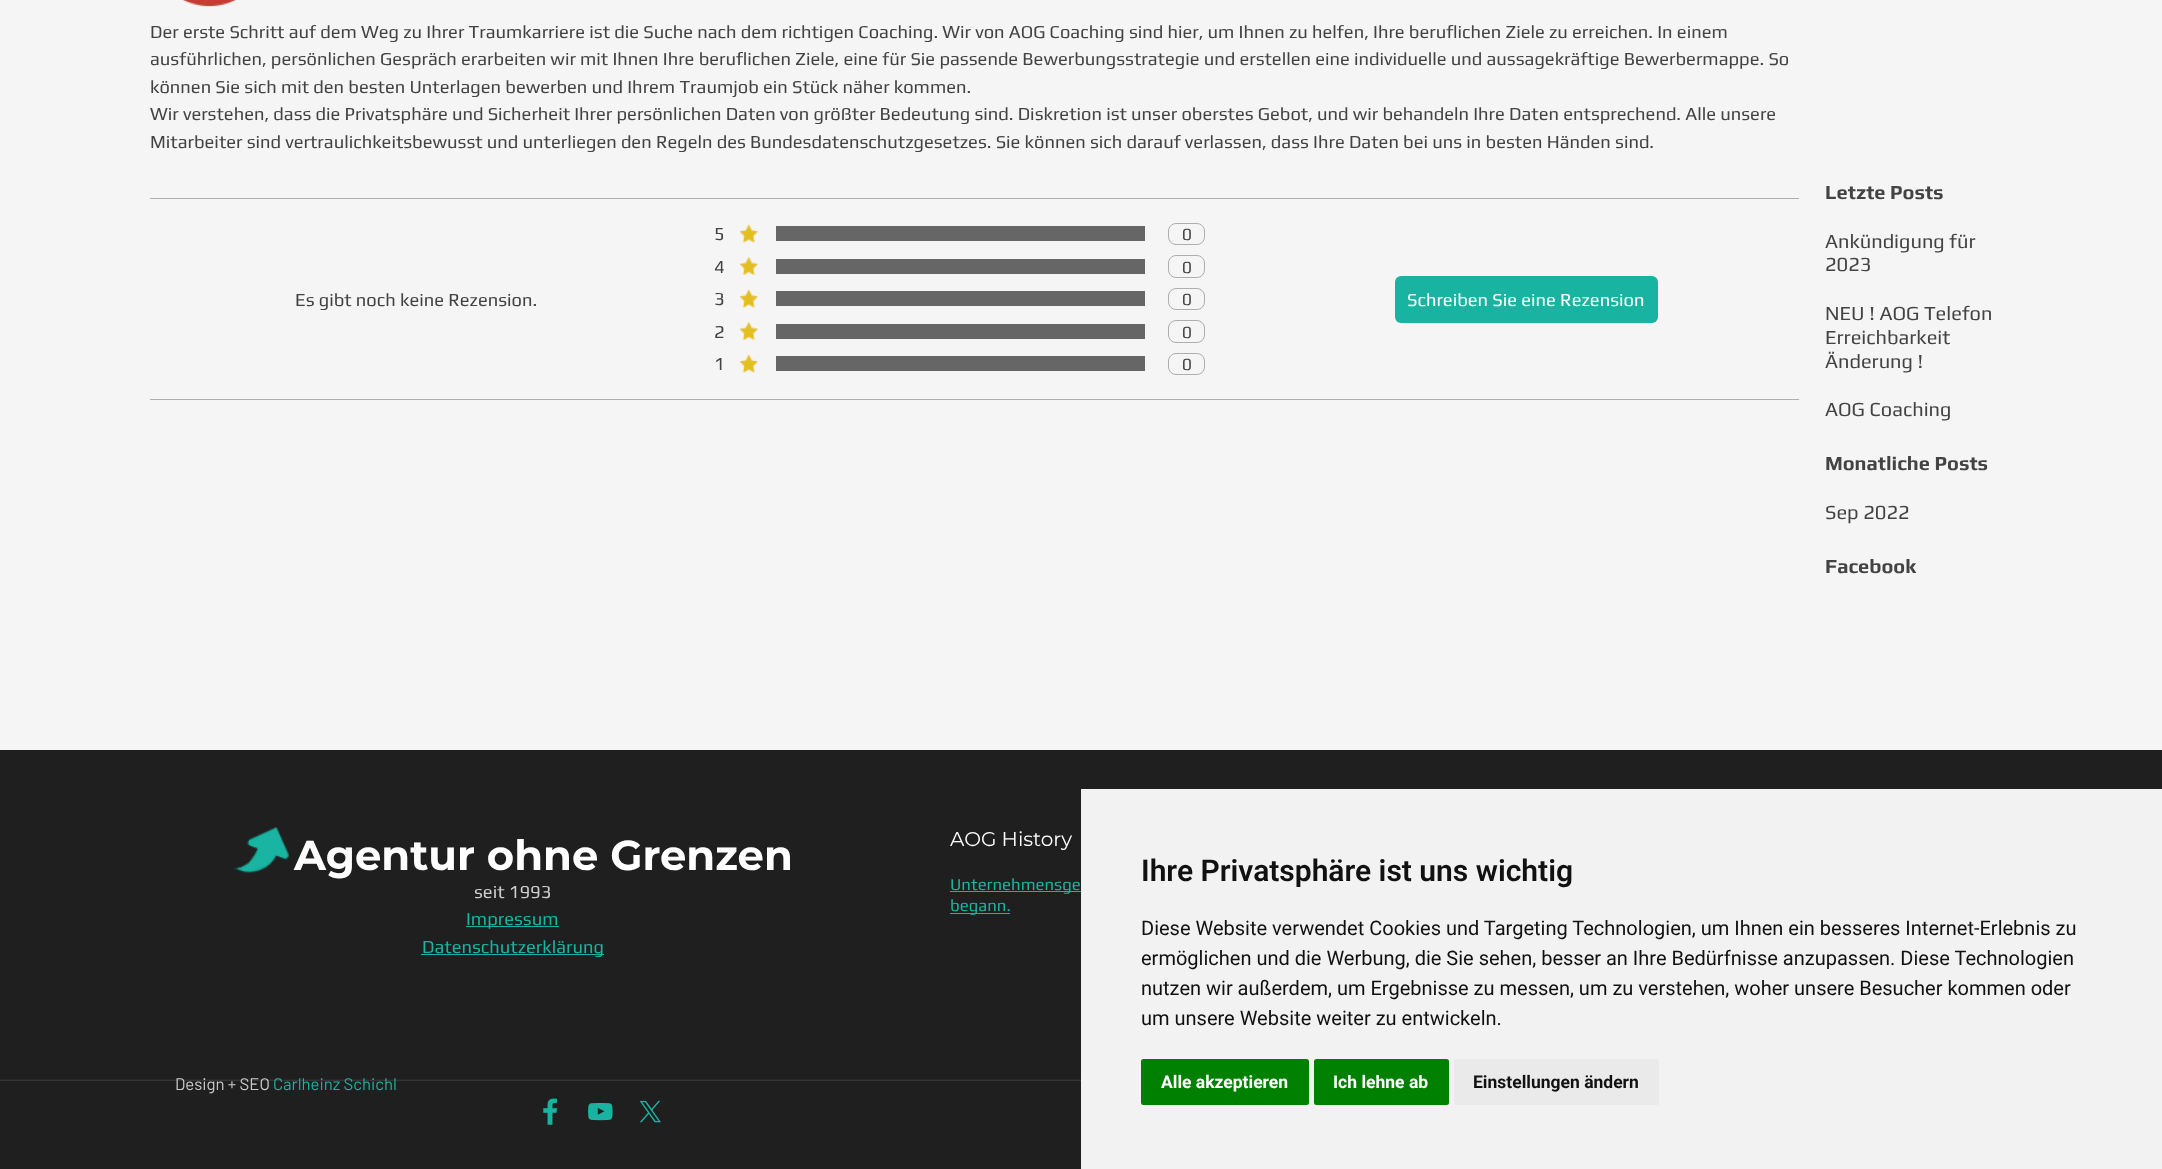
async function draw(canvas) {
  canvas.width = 2162;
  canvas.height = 1169;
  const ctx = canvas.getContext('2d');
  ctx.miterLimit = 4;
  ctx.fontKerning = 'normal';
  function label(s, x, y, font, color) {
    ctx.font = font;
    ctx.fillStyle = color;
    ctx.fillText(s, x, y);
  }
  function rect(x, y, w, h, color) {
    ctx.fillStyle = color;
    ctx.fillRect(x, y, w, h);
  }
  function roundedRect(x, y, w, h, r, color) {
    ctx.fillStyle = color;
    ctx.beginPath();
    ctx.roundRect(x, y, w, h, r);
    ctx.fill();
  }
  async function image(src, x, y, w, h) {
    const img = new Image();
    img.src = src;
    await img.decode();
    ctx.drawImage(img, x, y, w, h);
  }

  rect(0, 0, 2162, 1169, '#f5f5f5');
  await image('assets/img1.png', 182, 0, 54, 7);
  label('Der erste Schritt auf dem Weg zu Ihrer Traumkarriere ist die Suche nach dem richtigen Coaching. Wir von AOG Coaching sind hier, um Ihnen zu helfen, Ihre beruflichen Ziele zu erreichen. In einem', 150, 38, '18.33px Play', '#434343');
  label('ausführlichen, persönlichen Gespräch erarbeiten wir mit Ihnen Ihre beruflichen Ziele, eine für Sie passende Bewerbungsstrategie und erstellen eine individuelle und aussagekräftige Bewerbermappe. So', 150, 65, '18.33px Play', '#434343');
  label('können Sie sich mit den besten Unterlagen bewerben und Ihrem Traumjob ein Stück näher kommen.', 150, 93, '18.33px Play', '#434343');
  label('Wir verstehen, dass die Privatsphäre und Sicherheit Ihrer persönlichen Daten von größter Bedeutung sind. Diskretion ist unser oberstes Gebot, und wir behandeln Ihre Daten entsprechend. Alle unsere', 150, 120, '18.33px Play', '#434343');
  label('Mitarbeiter sind vertraulichkeitsbewusst und unterliegen den Regeln des Bundesdatenschutzgesetzes. Sie können sich darauf verlassen, dass Ihre Daten bei uns in besten Händen sind.', 150, 148, '18.33px Play', '#434343');
  rect(150, 198, 1649, 1, '#aeaeae');
  rect(150, 399, 1649, 1, '#aeaeae');
  label('Es gibt noch keine Rezension.', 295, 306, '18.33px Play', '#434343');
  label('5', 714, 240, '18.33px Play', '#434343');
  await image('assets/img2.png', 739, 224, 19, 19);
  rect(776, 226, 369, 15, '#666');
  ctx.beginPath();
  ctx.roundRect(1168.5, 223.5, 36, 21, 7.5);
  ctx.strokeStyle = '#aeaeae';
  ctx.stroke();
  label('0', 1182, 240, '17px Play', '#434343');
  label('4', 714, 273, '18.33px Play', '#434343');
  await image('assets/img3.png', 739, 257, 19, 18);
  rect(776, 259, 369, 15, '#666');
  ctx.beginPath();
  ctx.roundRect(1168.5, 255.5, 36, 22, 7.5);
  ctx.stroke();
  label('0', 1182, 273, '17px Play', '#434343');
  label('3', 714, 305, '18.33px Play', '#434343');
  await image('assets/img2.png', 739, 289, 19, 19);
  rect(776, 291, 369, 15, '#666');
  ctx.beginPath();
  ctx.roundRect(1168.5, 288.5, 36, 21, 7.5);
  ctx.stroke();
  label('0', 1182, 305, '17px Play', '#434343');
  label('2', 714, 338, '18.33px Play', '#434343');
  await image('assets/img4.png', 739, 322, 19, 18);
  rect(776, 324, 369, 15, '#666');
  ctx.beginPath();
  ctx.roundRect(1168.5, 320.5, 36, 22, 7.5);
  ctx.stroke();
  label('0', 1182, 338, '17px Play', '#434343');
  label('1', 714, 370, '18.33px Play', '#434343');
  await image('assets/img2.png', 739, 354, 19, 19);
  rect(776, 356, 369, 15, '#666');
  ctx.beginPath();
  ctx.roundRect(1168.5, 353.5, 36, 21, 7.5);
  ctx.stroke();
  label('0', 1182, 370, '17px Play', '#434343');
  roundedRect(1395, 276, 263, 47, 6, '#19b4a1');
  label('Schreiben Sie eine Rezension', 1407, 306, '18.33px Play', '#fff');
  label('Letzte Posts', 1825, 199, 'bold 20px Play', '#434343');
  label('Ankündigung für', 1825, 248, '20px Play', '#434343');
  label('2023', 1825, 271, '20px Play', '#434343');
  label('NEU ! AOG Telefon', 1825, 320, '20px Play', '#434343');
  label('Erreichbarkeit', 1825, 344, '20px Play', '#434343');
  label('Änderung !', 1825, 368, '20px Play', '#434343');
  label('AOG Coaching', 1825, 416, '20px Play', '#434343');
  label('Monatliche Posts', 1825, 470, 'bold 20px Play', '#434343');
  label('Sep 2022', 1825, 519, '20px Play', '#434343');
  label('Facebook', 1825, 573, 'bold 20px Play', '#434343');
  rect(0, 750, 2162, 419, '#1f1f1f');
  await image('assets/img5.png', 0, 1079, 1081, 2);
  await image('assets/img6.png', 233, 827, 57, 47);
  label('Agentur ohne Grenzen', 294, 870, 'bold 41.75px Montserrat', '#fff');
  label('seit 1993', 474, 898, '18.33px Play', '#ccc');
  rect(466, 926, 93, 1, '#19b4a1');
  label('Impressum', 466, 925, '18.33px Play', '#19b4a1');
  rect(421, 954, 183, 1, '#19b4a1');
  label('Datenschutzerklärung', 422, 953, '18.33px Play', '#19b4a1');
  label('AOG History', 950, 846, '20px Montserrat', '#fff');
  rect(950, 891, 131, 1, '#19b4a1');
  label('Unternehmensge', 950, 890, '16.75px Play', '#19b4a1');
  rect(950, 913, 60, 1, '#19b4a1');
  label('begann.', 950, 911, '16.75px Play', '#19b4a1');
  label('Design + SEO', 175, 1090, '16.75px Barlow', '#ccc');
  label('Carlheinz Schichl', 273, 1090, '16.75px Barlow', '#19b4a1');
  await image('assets/img7.png', 543, 1098, 15, 27);
  await image('assets/img8.png', 588, 1103, 25, 18);
  await image('assets/img9.png', 639, 1100, 22, 23);
  rect(1081, 789, 1081, 380, '#f2f2f2');
  label('Ihre Privatsphäre ist uns wichtig', 1141, 881, '600 30px Roboto', '#111');
  label('Diese Website verwendet Cookies und Targeting Technologien, um Ihnen ein besseres Internet-Erlebnis zu', 1141, 935, '20px Roboto', '#111');
  label('ermöglichen und die Werbung, die Sie sehen, besser an Ihre Bedürfnisse anzupassen. Diese Technologien', 1141, 965, '20px Roboto', '#111');
  label('nutzen wir außerdem, um Ergebnisse zu messen, um zu verstehen, woher unsere Besucher kommen oder', 1141, 995, '20px Roboto', '#111');
  label('um unsere Website weiter zu entwickeln.', 1141, 1025, '20px Roboto', '#111');
  roundedRect(1141, 1059, 168, 46, 2.5, '#008000');
  label('Alle akzeptieren', 1161, 1088, 'bold 17.5px Roboto', '#fff');
  roundedRect(1314, 1059, 135, 46, 2.5, '#008000');
  label('Ich lehne ab', 1333, 1088, 'bold 17.5px Roboto', '#fff');
  roundedRect(1454, 1059, 205, 46, 2.5, '#eaeaea');
  label('Einstellungen ändern', 1473, 1088, 'bold 17.5px Roboto', '#111');
}

draw(document.querySelector('canvas'));
